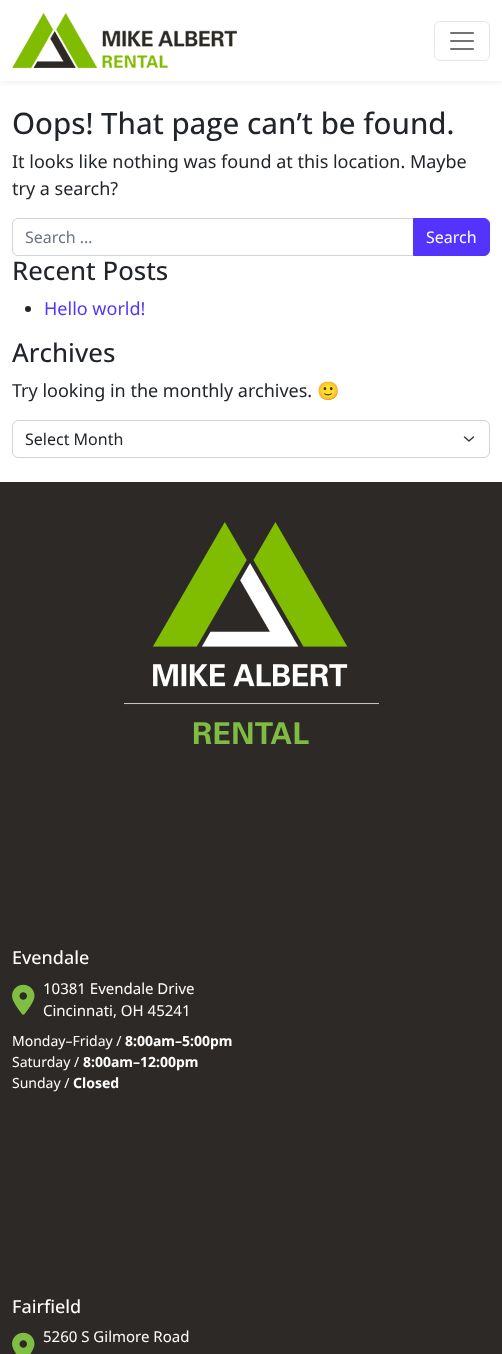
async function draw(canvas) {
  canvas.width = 502;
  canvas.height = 1354;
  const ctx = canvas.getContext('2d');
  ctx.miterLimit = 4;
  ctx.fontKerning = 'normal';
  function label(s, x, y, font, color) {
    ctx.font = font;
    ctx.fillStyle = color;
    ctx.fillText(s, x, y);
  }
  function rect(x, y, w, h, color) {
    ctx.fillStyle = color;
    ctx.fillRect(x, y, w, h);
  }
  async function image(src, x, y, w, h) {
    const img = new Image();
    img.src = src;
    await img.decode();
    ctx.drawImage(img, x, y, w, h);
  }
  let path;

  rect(0, 0, 502, 1354, '#fff');
  ctx.save();
  ctx.beginPath();
  ctx.rect(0, 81, 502, 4);
  ctx.clip();
  ctx.fillStyle = '#0000001a';
  ctx.filter = 'blur(4.5px)';
  ctx.beginPath();
  ctx.rect(0, 0, 502, 81);
  ctx.fill();
  ctx.filter = 'none';
  ctx.restore();
  await image('assets/img1.png', 12, 13, 225, 55);
  ctx.beginPath();
  ctx.roundRect(434.5, 21.5, 55, 39, 5.5);
  ctx.strokeStyle = '#e6e6e6';
  ctx.stroke();
  await image('assets/img2.png', 450, 32, 24, 18);
  label('Oops! That page can’t be found.', 12, 134, '500 29.5px Open Sans', '#212529');
  label('It looks like nothing was found at this location. Maybe', 12, 168, '18px Noto Sans', '#212529');
  label('try a search?', 12, 195, '18px Noto Sans', '#212529');
  ctx.beginPath();
  ctx.roundRect(12.5, 218.5, 401, 37, [5.5, 0, 0, 5.5]);
  ctx.strokeStyle = '#ced4da';
  ctx.stroke();
  label('Search …', 25, 243, '16px Noto Sans', '#6c757d');
  ctx.fillStyle = '#53f';
  ctx.beginPath();
  ctx.roundRect(413.5, 218.5, 76, 37, [0, 5.5, 5.5, 0]);
  ctx.fill();
  ctx.strokeStyle = '#53f';
  ctx.stroke();
  label('Search', 426, 243, '16px Noto Sans', '#fff');
  label('Recent Posts', 12, 280, '500 25.75px Open Sans', '#212529');
  ctx.beginPath();
  ctx.arc(28, 309, 3, 0, 2 * Math.PI);
  ctx.fill();
  label('Hello world!', 44, 315, '18px Noto Sans', '#53f');
  label('Archives', 12, 362, '500 25.75px Open Sans', '#212529');
  label('Try looking in the monthly archives.', 12, 397, '18px Noto Sans', '#212529');
  label('🙂', 317, 397, '18px Noto Color Emoji', '#212529');
  path = new Path2D('M464.5 437L469 441L473.5 437');
  ctx.strokeStyle = '#343a40';
  ctx.lineWidth = 1.5;
  ctx.lineCap = 'round';
  ctx.lineJoin = 'round';
  ctx.stroke(path);
  ctx.beginPath();
  ctx.roundRect(12.5, 420.5, 477, 37, 5.5);
  ctx.strokeStyle = '#ced4da';
  ctx.lineWidth = 1;
  ctx.lineJoin = 'miter';
  ctx.stroke();
  label('Select Month', 25, 445, '16px Noto Sans', '#212529');
  rect(0, 482, 502, 872, '#2d2926');
  await image('assets/img3.png', 124, 522, 255, 222);
  label('Evendale', 12, 964, '500 18px Open Sans', '#fff');
  await image('assets/img4.png', 12, 984, 23, 31);
  label('10381 Evendale Drive', 43, 994, '15px Noto Sans', '#fff');
  label('Cincinnati, OH 45241', 43, 1016, '15px Noto Sans', '#fff');
  label('Monday–Friday /', 12, 1046, '14px Noto Sans', '#fff');
  label('8:00am–5:00pm', 125, 1046, 'bold 14px Noto Sans', '#fff');
  label('Saturday /', 12, 1067, '14px Noto Sans', '#fff');
  label('8:00am–12:00pm', 83, 1067, 'bold 14px Noto Sans', '#fff');
  label('Sunday /', 12, 1088, '14px Noto Sans', '#fff');
  label('Closed', 73, 1088, 'bold 14px Noto Sans', '#fff');
  label('Fairfield', 12, 1313, '500 18px Open Sans', '#fff');
  await image('assets/img5.png', 12, 1332, 23, 22);
  label('5260 S Gilmore Road', 43, 1342, '15px Noto Sans', '#fff');
}

draw(document.querySelector('canvas'));
